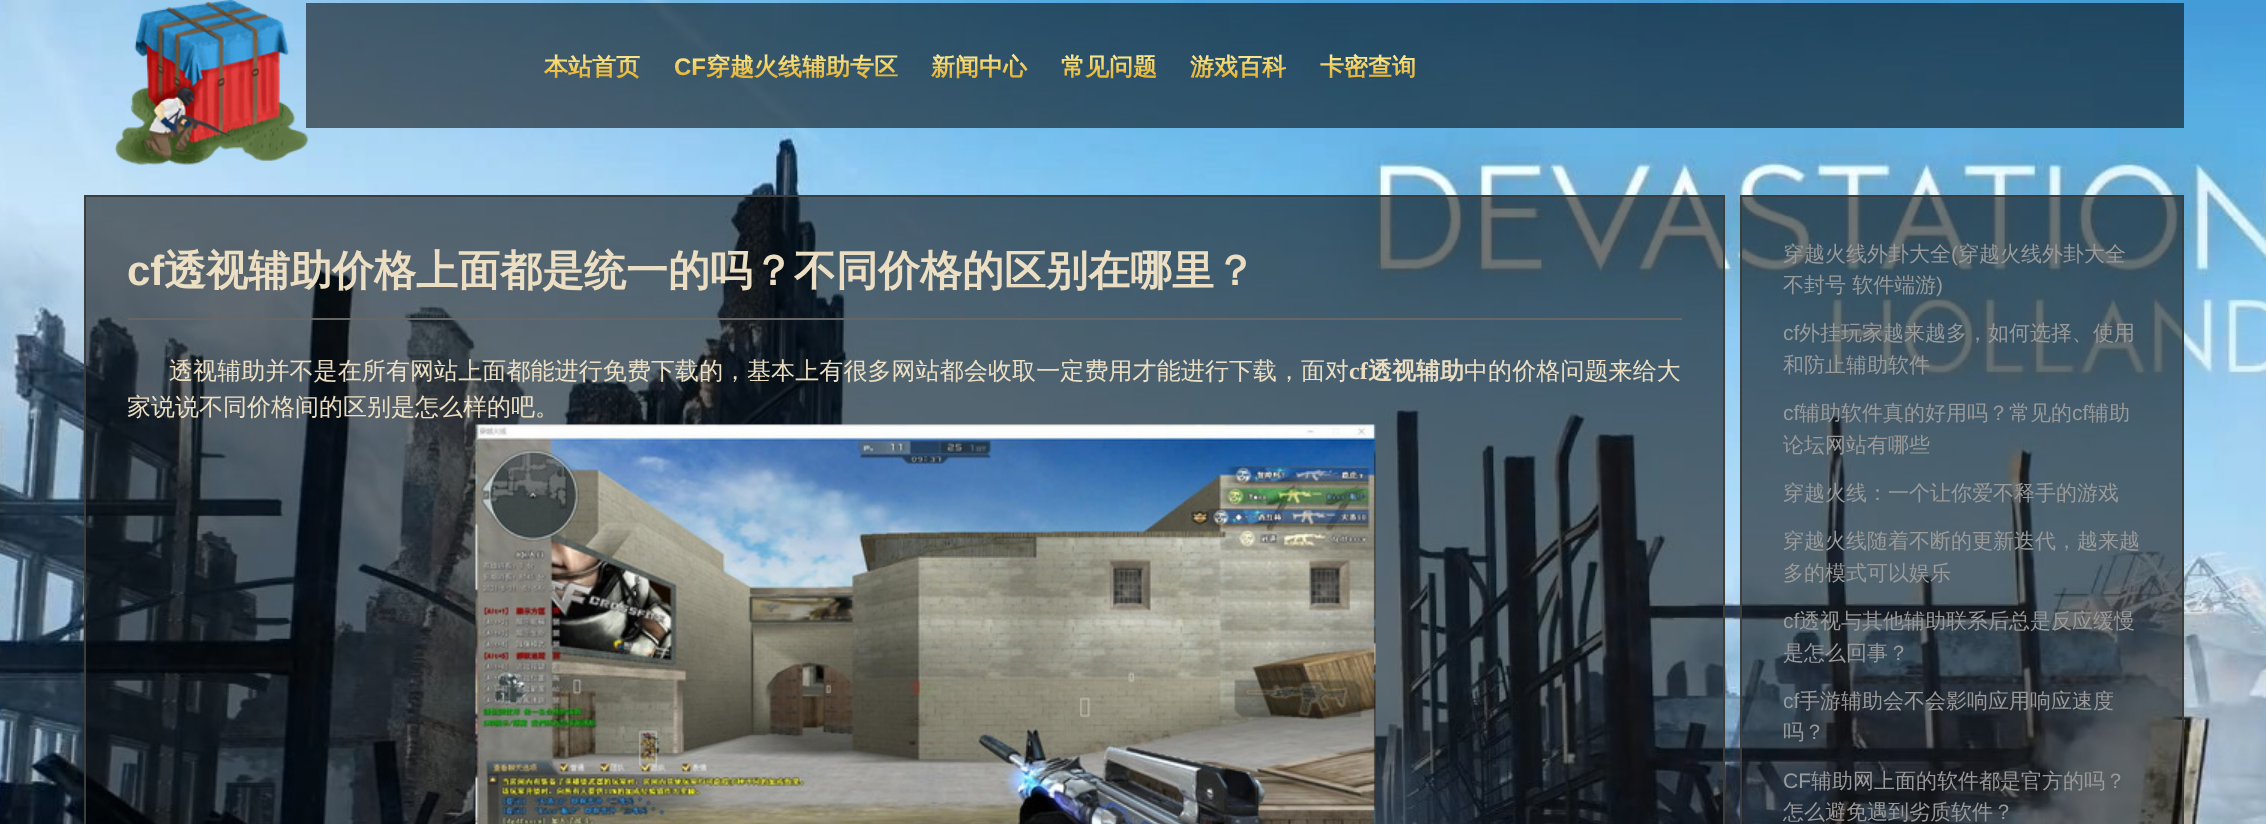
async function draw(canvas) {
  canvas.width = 2266;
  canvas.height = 824;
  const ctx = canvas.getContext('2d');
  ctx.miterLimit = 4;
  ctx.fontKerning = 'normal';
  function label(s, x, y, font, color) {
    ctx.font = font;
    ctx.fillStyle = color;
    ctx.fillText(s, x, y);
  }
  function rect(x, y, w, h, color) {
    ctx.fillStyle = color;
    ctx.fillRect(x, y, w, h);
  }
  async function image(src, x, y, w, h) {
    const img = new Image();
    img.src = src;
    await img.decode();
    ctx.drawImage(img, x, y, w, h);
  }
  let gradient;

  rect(0, 0, 2266, 824, '#fff');
  await image('assets/img1.png', 0, 0, 2266, 824);
  rect(306, 3, 1878, 125, '#0000008c');
  await image('assets/img2.png', 114, 0, 195, 166);
  ctx.font = 'bold 24px WenQuanYi Zen Hei';
  gradient = ctx.createLinearGradient(592, 80, 592, 54);
  gradient.addColorStop(0, '#e3ab27');
  gradient.addColorStop(1, '#fded95');
  ctx.fillStyle = gradient;
  ctx.fillText('本站首页', 544, 75);
  ctx.font = 'bold 24px Liberation Sans';
  gradient = ctx.createLinearGradient(786, 80, 786, 54);
  gradient.addColorStop(0, '#e3ab27');
  gradient.addColorStop(1, '#fded95');
  ctx.fillStyle = gradient;
  ctx.fillText('CF', 674, 75);
  ctx.font = 'bold 24px WenQuanYi Zen Hei';
  ctx.fillText('穿越火线辅助专区', 706, 75);
  gradient = ctx.createLinearGradient(979, 80, 979, 54);
  gradient.addColorStop(0, '#e3ab27');
  gradient.addColorStop(1, '#fded95');
  ctx.fillStyle = gradient;
  ctx.fillText('新闻中心', 931, 75);
  gradient = ctx.createLinearGradient(1109, 80, 1109, 54);
  gradient.addColorStop(0, '#e3ab27');
  gradient.addColorStop(1, '#fded95');
  ctx.fillStyle = gradient;
  ctx.fillText('常见问题', 1061, 75);
  gradient = ctx.createLinearGradient(1238, 80, 1238, 54);
  gradient.addColorStop(0, '#e3ab27');
  gradient.addColorStop(1, '#fded95');
  ctx.fillStyle = gradient;
  ctx.fillText('游戏百科', 1190, 75);
  gradient = ctx.createLinearGradient(1368, 80, 1368, 54);
  gradient.addColorStop(0, '#e3ab27');
  gradient.addColorStop(1, '#fded95');
  ctx.fillStyle = gradient;
  ctx.fillText('卡密查询', 1320, 75);
  ctx.fillStyle = '#0000008c';
  ctx.beginPath();
  ctx.rect(85, 196, 1639, 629);
  ctx.fill();
  ctx.strokeStyle = '#3d3d3c';
  ctx.lineWidth = 2;
  ctx.stroke();
  rect(128, 318, 1554, 2, '#666');
  label('cf', 127, 285, 'bold 42px Liberation Sans', '#ebdec2');
  label('透视辅助价格上面都是统一的吗？不同价格的区别在哪里？', 164, 285, 'bold 42px WenQuanYi Zen Hei', '#ebdec2');
  ctx.letterSpacing = '0.1px';
  label('透视辅助并不是在所有网站上面都能进行免费下载的', 169, 379, '500 24px WenQuanYi Zen Hei', '#ebdec2');
  ctx.letterSpacing = '0px';
  label('，', 723, 379, '500 24px WenQuanYi Zen Hei', '#ebdec2');
  ctx.letterSpacing = '0.1px';
  label('基本上有很多网站都会收取一定费用才能进行下载', 747, 379, '500 24px WenQuanYi Zen Hei', '#ebdec2');
  ctx.letterSpacing = '0px';
  label('，面对', 1277, 379, '500 24px WenQuanYi Zen Hei', '#ebdec2');
  label('cf', 1349, 379, 'bold 24px Liberation Serif', '#ebdec2');
  label('透视辅助', 1368, 379, 'bold 24px WenQuanYi Zen Hei', '#ebdec2');
  ctx.letterSpacing = '0.1px';
  label('中的价格问题来给大', 1464, 379, '500 24px WenQuanYi Zen Hei', '#ebdec2');
  ctx.letterSpacing = '0px';
  label('家说说不同价格间的区别是怎么样的吧。', 127, 415, '500 24px WenQuanYi Zen Hei', '#ebdec2');
  await image('assets/img3.png', 475, 424, 901, 400);
  ctx.fillStyle = '#0000008c';
  ctx.beginPath();
  ctx.rect(1741, 196, 442, 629);
  ctx.fill();
  ctx.stroke();
  label('穿越火线外卦大全', 1783, 261, '500 21px WenQuanYi Zen Hei', '#999');
  label('(', 1951, 261, '21px Liberation Sans', '#999');
  label('穿越火线外卦大全', 1958, 261, '500 21px WenQuanYi Zen Hei', '#999');
  label('不封号 软件端游', 1783, 292, '500 21px WenQuanYi Zen Hei', '#999');
  label(')', 1936, 292, '21px Liberation Sans', '#999');
  label('cf', 1783, 340, '21px Liberation Sans', '#999');
  label('外挂玩家越来越多，如何选择、使用', 1799, 340, '500 21px WenQuanYi Zen Hei', '#999');
  label('和防止辅助软件', 1783, 372, '500 21px WenQuanYi Zen Hei', '#999');
  label('cf', 1783, 420, '21px Liberation Sans', '#999');
  label('辅助软件真的好用吗？常见的', 1799, 420, '500 21px WenQuanYi Zen Hei', '#999');
  label('cf', 2072, 420, '21px Liberation Sans', '#999');
  label('辅助', 2088, 420, '500 21px WenQuanYi Zen Hei', '#999');
  label('论坛网站有哪些', 1783, 452, '500 21px WenQuanYi Zen Hei', '#999');
  label('穿越火线：一个让你爱不释手的游戏', 1783, 500, '500 21px WenQuanYi Zen Hei', '#999');
  label('穿越火线随着不断的更新迭代，越来越', 1783, 548, '500 21px WenQuanYi Zen Hei', '#999');
  label('多的模式可以娱乐', 1783, 580, '500 21px WenQuanYi Zen Hei', '#999');
  label('cf', 1783, 628, '21px Liberation Sans', '#999');
  label('透视与其他辅助联系后总是反应缓慢', 1799, 628, '500 21px WenQuanYi Zen Hei', '#999');
  label('是怎么回事？', 1783, 660, '500 21px WenQuanYi Zen Hei', '#999');
  label('cf', 1783, 708, '21px Liberation Sans', '#999');
  label('手游辅助会不会影响应用响应速度', 1799, 708, '500 21px WenQuanYi Zen Hei', '#999');
  label('吗？', 1783, 739, '500 21px WenQuanYi Zen Hei', '#999');
  label('CF', 1783, 788, '21px Liberation Sans', '#999');
  label('辅助网上面的软件都是官方的吗？', 1811, 788, '500 21px WenQuanYi Zen Hei', '#999');
  label('怎么避免遇到劣质软件？', 1783, 819, '500 21px WenQuanYi Zen Hei', '#999');
}

draw(document.querySelector('canvas'));
